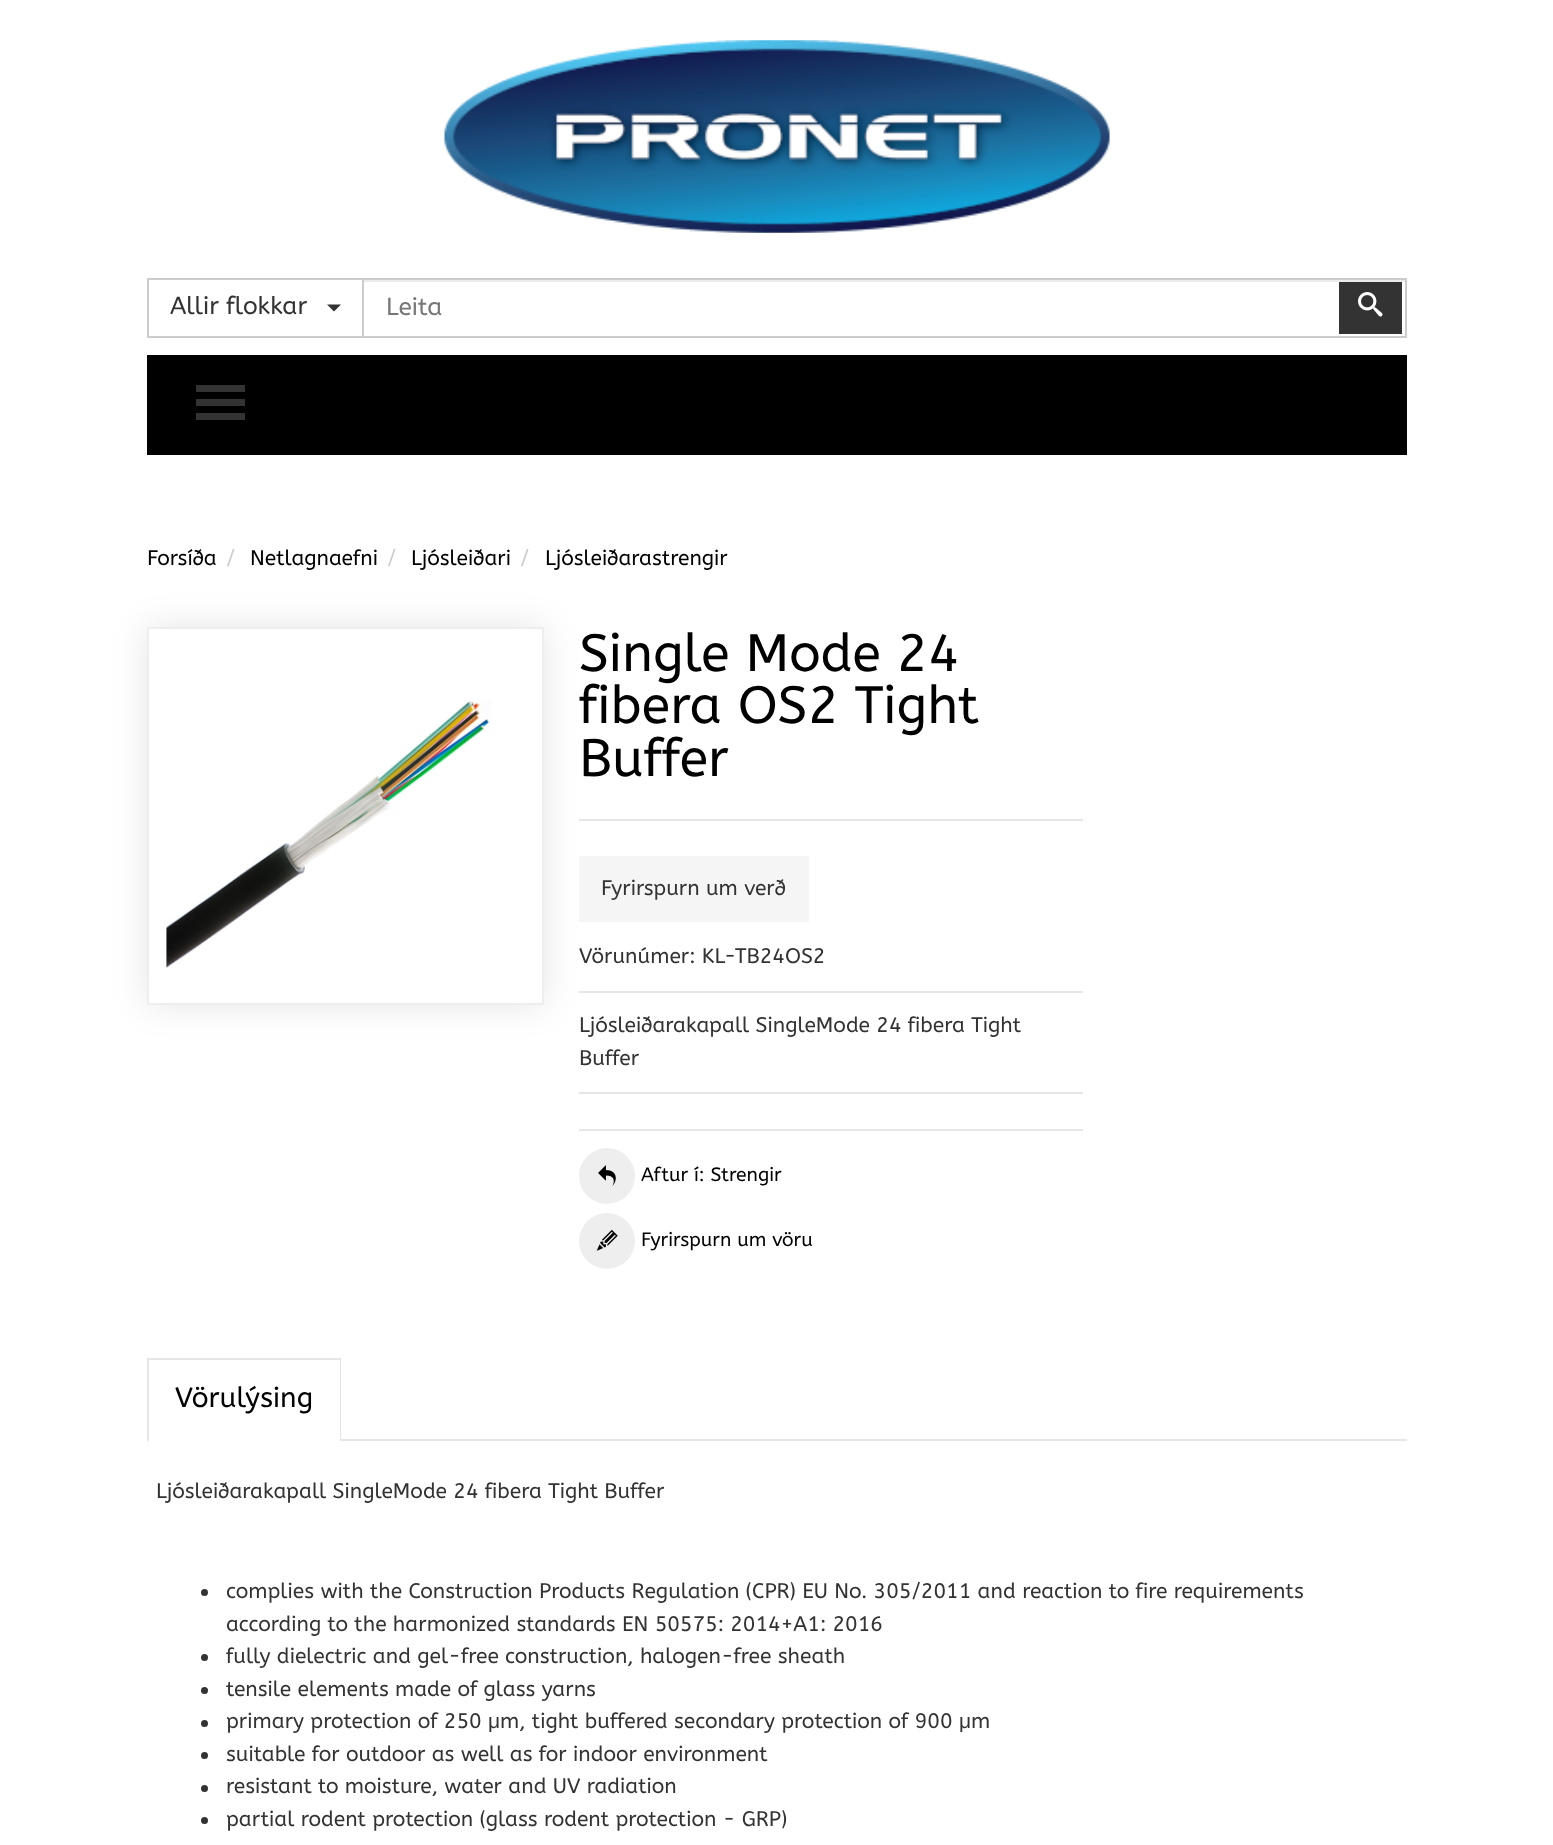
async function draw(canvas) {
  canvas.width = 1553;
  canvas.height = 1845;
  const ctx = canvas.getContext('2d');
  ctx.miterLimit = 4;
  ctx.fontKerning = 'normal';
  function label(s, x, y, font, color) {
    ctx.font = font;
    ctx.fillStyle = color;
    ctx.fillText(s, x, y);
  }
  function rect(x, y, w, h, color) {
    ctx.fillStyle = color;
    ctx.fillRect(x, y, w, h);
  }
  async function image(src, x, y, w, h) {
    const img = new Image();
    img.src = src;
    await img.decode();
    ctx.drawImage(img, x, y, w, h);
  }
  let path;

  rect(0, 0, 1553, 1845, '#fff');
  await image('assets/img1.png', 444, 40, 666, 193);
  rect(147, 278, 215, 2, '#ccc');
  rect(147, 336, 215, 2, '#ccc');
  rect(147, 278, 2, 60, '#ccc');
  label('Allir flokkar', 170, 314, '24.5px ABeeZee', '#333');
  path = new Path2D('M327 304.5H341L334 311.5Z');
  ctx.fill(path);
  rect(364, 280, 1041, 2, '#ececec');
  ctx.strokeStyle = '#ccc';
  ctx.lineWidth = 2;
  ctx.strokeRect(363, 279, 1043, 58);
  label('Leita', 386, 315, '24.5px ABeeZee', '#777');
  rect(1339, 282, 63, 52, '#333');
  await image('assets/img2.png', 1358, 292, 25, 25);
  rect(147, 355, 1260, 100, '#000');
  ctx.fillStyle = '#333';
  path = new Path2D('M196 385H245V392H196ZM196 399H245V406H196ZM196 413H245V420H196Z');
  ctx.fill(path);
  label('Forsíða', 147, 565, '21px ABeeZee', '#000');
  label('/', 226, 565, '21px ABeeZee', '#ccc');
  label('Netlagnaefni', 250, 565, '21px ABeeZee', '#000');
  label('/', 387, 565, '21px ABeeZee', '#ccc');
  label('Ljósleiðari', 411, 565, '21px ABeeZee', '#000');
  label('/', 520, 565, '21px ABeeZee', '#ccc');
  label('Ljósleiðarastrengir', 545, 565, '21px ABeeZee', '#000');
  ctx.fillStyle = '#0000001a';
  ctx.filter = 'blur(17.5px)';
  ctx.beginPath();
  ctx.rect(147, 627, 397, 378);
  ctx.fill();
  ctx.filter = 'none';
  ctx.fillStyle = '#fff';
  ctx.beginPath();
  ctx.rect(148, 628, 395, 376);
  ctx.fill();
  ctx.strokeStyle = '#eee';
  ctx.stroke();
  await image('assets/img3.png', 166, 700, 325, 268);
  label('Single Mode 24', 579, 671, '52.5px ABeeZee', '#000');
  label('fibera OS2 Tight', 579, 723, '52.5px ABeeZee', '#000');
  label('Buffer', 579, 776, '52.5px ABeeZee', '#000');
  rect(579, 819, 504, 2, '#e6e6e6');
  rect(579, 991, 504, 2, '#e6e6e6');
  rect(579, 856, 230, 66, '#f5f5f5');
  label('Fyrirspurn um verð', 601, 895, '21px ABeeZee', '#333');
  label('Vörunúmer: KL-TB24OS2', 579, 963, '21px ABeeZee', '#333');
  rect(579, 1092, 504, 2, '#e6e6e6');
  label('Ljósleiðarakapall SingleMode 24 fibera Tight', 579, 1032, '21px ABeeZee', '#333');
  label('Buffer', 579, 1065, '21px ABeeZee', '#333');
  rect(579, 1129, 504, 2, '#e6e6e6');
  ctx.fillStyle = '#eee';
  ctx.beginPath();
  ctx.arc(607, 1176, 28, 0, 2 * Math.PI);
  ctx.fill();
  await image('assets/img4.png', 598, 1165, 18, 21);
  label('Aftur í: Strengir', 641, 1181, '19.25px ABeeZee', '#000');
  ctx.fillStyle = '#eee';
  ctx.beginPath();
  ctx.arc(607, 1241, 28, 0, 2 * Math.PI);
  ctx.fill();
  await image('assets/img5.png', 596, 1229, 22, 22);
  label('Fyrirspurn um vöru', 641, 1246, '19.25px ABeeZee', '#000');
  rect(147, 1358, 194, 2, '#e6e6e6');
  path = new Path2D('M341 1358V1442L340 1440V1360Z');
  ctx.fill(path);
  path = new Path2D('M147 1442V1358L149 1360V1440Z');
  ctx.fill(path);
  label('Vörulýsing', 175, 1407, '28px ABeeZee', '#000');
  rect(341, 1439, 1066, 2, '#e6e6e6');
  label('Ljósleiðarakapall SingleMode 24 fibera Tight Buffer', 156, 1498, '21px ABeeZee', '#333');
  ctx.beginPath();
  ctx.arc(204.5, 1592.5, 3.5, 0, 2 * Math.PI);
  ctx.fill();
  label('complies with the Construction Products Regulation (CPR) EU No. 305/2011 and reaction to fire requirements', 226, 1598, '21px ABeeZee', '#333');
  label('according to the harmonized standards EN 50575: 2014+A1: 2016', 226, 1631, '21px ABeeZee', '#333');
  ctx.beginPath();
  ctx.arc(204.5, 1657.5, 3.5, 0, 2 * Math.PI);
  ctx.fill();
  label('fully dielectric and gel-free construction, halogen-free sheath', 226, 1663, '21px ABeeZee', '#333');
  ctx.beginPath();
  ctx.arc(204.5, 1690.5, 3.5, 0, 2 * Math.PI);
  ctx.fill();
  label('tensile elements made of glass yarns', 226, 1696, '21px ABeeZee', '#333');
  ctx.beginPath();
  ctx.arc(204.5, 1723.5, 3.5, 0, 2 * Math.PI);
  ctx.fill();
  label('primary protection of 250', 226, 1728, '21px ABeeZee', '#333');
  label('μ', 488, 1728, '21px Liberation Sans', '#333');
  label('m, tight buffered secondary protection of 900', 500, 1728, '21px ABeeZee', '#333');
  label('μ', 959, 1728, '21px Liberation Sans', '#333');
  label('m', 971, 1728, '21px ABeeZee', '#333');
  ctx.beginPath();
  ctx.arc(204.5, 1755.5, 3.5, 0, 2 * Math.PI);
  ctx.fill();
  label('suitable for outdoor as well as for indoor environment', 226, 1761, '21px ABeeZee', '#333');
  ctx.beginPath();
  ctx.arc(204.5, 1788.5, 3.5, 0, 2 * Math.PI);
  ctx.fill();
  label('resistant to moisture, water and UV radiation', 226, 1793, '21px ABeeZee', '#333');
  ctx.beginPath();
  ctx.arc(204.5, 1820.5, 3.5, 0, 2 * Math.PI);
  ctx.fill();
  label('partial rodent protection (glass rodent protection - GRP)', 226, 1826, '21px ABeeZee', '#333');
}

draw(document.querySelector('canvas'));
